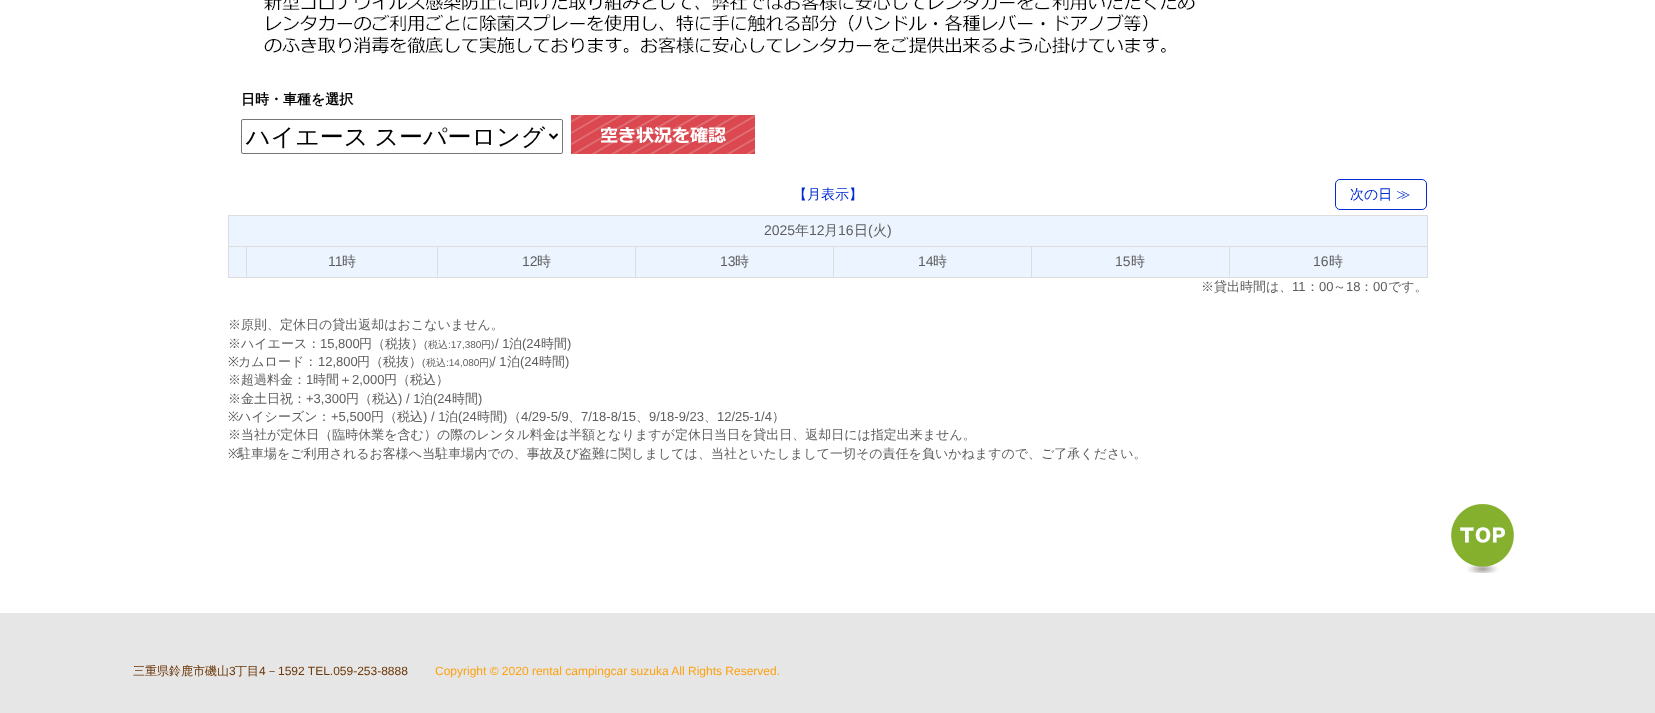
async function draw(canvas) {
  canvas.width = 1655;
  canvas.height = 713;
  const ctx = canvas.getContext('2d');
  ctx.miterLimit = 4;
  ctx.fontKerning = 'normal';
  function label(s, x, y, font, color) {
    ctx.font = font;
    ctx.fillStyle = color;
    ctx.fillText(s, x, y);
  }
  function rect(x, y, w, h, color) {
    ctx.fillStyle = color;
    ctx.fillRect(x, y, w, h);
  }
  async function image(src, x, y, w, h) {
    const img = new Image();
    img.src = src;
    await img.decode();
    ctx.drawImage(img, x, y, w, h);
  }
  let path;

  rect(0, 0, 1655, 713, '#fff');
  await image('assets/img1.png', 261, 0, 934, 58);
  label('日時・車種を選択', 241, 104, 'bold 14px WenQuanYi Zen Hei', '#000');
  ctx.beginPath();
  ctx.roundRect(241.5, 119.5, 321, 34, 1.5);
  ctx.strokeStyle = '#767676';
  ctx.stroke();
  path = new Path2D('M549.5 134L553.5 138L557.5 134');
  ctx.strokeStyle = '#000';
  ctx.lineWidth = 2;
  ctx.stroke(path);
  ctx.wordSpacing = '-1px';
  label('ハイエース スーパーロング', 246, 145, '500 24px WenQuanYi Zen Hei', '#000');
  await image('assets/img2.png', 571, 115, 184, 39);
  ctx.wordSpacing = '0px';
  label('【月表示】', 793, 199, '500 14px WenQuanYi Zen Hei', '#002cd1');
  ctx.beginPath();
  ctx.roundRect(1335.5, 179.5, 91, 30, 4.5);
  ctx.strokeStyle = '#002cd1';
  ctx.lineWidth = 1;
  ctx.stroke();
  label('次の日 ≫', 1350, 199, '500 14px WenQuanYi Zen Hei', '#002cd1');
  rect(228, 215, 1200, 1, '#dcdddc');
  rect(1427, 215, 1, 63, '#dcdddc');
  rect(228, 277, 1200, 1, '#dcdddc');
  rect(228, 215, 1, 63, '#dcdddc');
  rect(229, 216, 1198, 30, '#ecf5ff');
  label('2025', 764, 235, '14px Liberation Sans', '#5e5e5e');
  label('年', 795, 235, '500 14px WenQuanYi Zen Hei', '#5e5e5e');
  label('12', 809, 235, '14px Liberation Sans', '#5e5e5e');
  label('月', 824, 235, '500 14px WenQuanYi Zen Hei', '#5e5e5e');
  label('16', 838, 235, '14px Liberation Sans', '#5e5e5e');
  label('日', 854, 235, '500 14px WenQuanYi Zen Hei', '#5e5e5e');
  label('(', 868, 235, '14px Liberation Sans', '#5e5e5e');
  label('火', 873, 235, '500 14px WenQuanYi Zen Hei', '#5e5e5e');
  label(')', 887, 235, '14px Liberation Sans', '#5e5e5e');
  rect(229, 247, 17, 30, '#ecf5ff');
  rect(1229, 246, 199, 1, '#dcdddc');
  rect(1229, 246, 1, 32, '#dcdddc');
  rect(1031, 246, 199, 1, '#dcdddc');
  rect(1031, 246, 1, 32, '#dcdddc');
  rect(833, 246, 199, 1, '#dcdddc');
  rect(833, 246, 1, 32, '#dcdddc');
  rect(635, 246, 199, 1, '#dcdddc');
  rect(635, 246, 1, 32, '#dcdddc');
  rect(437, 246, 199, 1, '#dcdddc');
  rect(437, 246, 1, 32, '#dcdddc');
  rect(246, 246, 192, 1, '#dcdddc');
  rect(246, 246, 1, 32, '#dcdddc');
  rect(228, 246, 19, 1, '#dcdddc');
  rect(247, 247, 190, 30, '#ecf5ff');
  label('11', 328, 266, '14px Liberation Sans', '#5e5e5e');
  label('時', 342, 266, '500 14px WenQuanYi Zen Hei', '#5e5e5e');
  rect(438, 247, 197, 30, '#ecf5ff');
  label('12', 522, 266, '14px Liberation Sans', '#5e5e5e');
  label('時', 537, 266, '500 14px WenQuanYi Zen Hei', '#5e5e5e');
  rect(636, 247, 197, 30, '#ecf5ff');
  label('13', 720, 266, '14px Liberation Sans', '#5e5e5e');
  label('時', 735, 266, '500 14px WenQuanYi Zen Hei', '#5e5e5e');
  rect(834, 247, 197, 30, '#ecf5ff');
  label('14', 918, 266, '14px Liberation Sans', '#5e5e5e');
  label('時', 933, 266, '500 14px WenQuanYi Zen Hei', '#5e5e5e');
  rect(1032, 247, 197, 30, '#ecf5ff');
  label('15', 1115, 266, '14px Liberation Sans', '#5e5e5e');
  label('時', 1131, 266, '500 14px WenQuanYi Zen Hei', '#5e5e5e');
  rect(1230, 247, 197, 30, '#ecf5ff');
  label('16', 1313, 266, '14px Liberation Sans', '#5e5e5e');
  label('時', 1329, 266, '500 14px WenQuanYi Zen Hei', '#5e5e5e');
  label('※貸出時間は、', 1201, 291, '500 13px WenQuanYi Zen Hei', '#5e5e5e');
  label('11', 1292, 291, '13px Liberation Sans', '#5e5e5e');
  label('：', 1306, 291, '500 13px WenQuanYi Zen Hei', '#5e5e5e');
  label('00', 1319, 291, '13px Liberation Sans', '#5e5e5e');
  label('～', 1333, 291, '500 13px WenQuanYi Zen Hei', '#5e5e5e');
  label('18', 1346, 291, '13px Liberation Sans', '#5e5e5e');
  label('：', 1360, 291, '500 13px WenQuanYi Zen Hei', '#5e5e5e');
  label('00', 1373, 291, '13px Liberation Sans', '#5e5e5e');
  label('です。', 1388, 291, '500 13px WenQuanYi Zen Hei', '#5e5e5e');
  label('※原則、定休日の貸出返却はおこないません。', 228, 329, '500 13px WenQuanYi Zen Hei', '#5e5e5e');
  label('※ハイエース：', 228, 348, '500 13px WenQuanYi Zen Hei', '#5e5e5e');
  label('15,800', 320, 348, '13px Liberation Sans', '#5e5e5e');
  label('円（税抜）', 359, 348, '500 13px WenQuanYi Zen Hei', '#5e5e5e');
  label('(', 424, 348, '10px Liberation Sans', '#5e5e5e');
  label('税込', 428, 348, '500 10px WenQuanYi Zen Hei', '#5e5e5e');
  label(':17,380', 448, 348, '10px Liberation Sans', '#5e5e5e');
  label('円', 481, 348, '500 10px WenQuanYi Zen Hei', '#5e5e5e');
  label(')', 491, 348, '10px Liberation Sans', '#5e5e5e');
  label('/ 1', 495, 348, '13px Liberation Sans', '#5e5e5e');
  label('泊', 509, 348, '500 13px WenQuanYi Zen Hei', '#5e5e5e');
  label('(24', 522, 348, '13px Liberation Sans', '#5e5e5e');
  label('時間', 541, 348, '500 13px WenQuanYi Zen Hei', '#5e5e5e');
  label(')', 567, 348, '13px Liberation Sans', '#5e5e5e');
  label('※', 228, 366, '13px Noto Sans', '#5e5e5e');
  label('カムロード：', 238, 366, '500 13px WenQuanYi Zen Hei', '#5e5e5e');
  label('12,800', 318, 366, '13px Liberation Sans', '#5e5e5e');
  label('円（税抜）', 357, 366, '500 13px WenQuanYi Zen Hei', '#5e5e5e');
  label('(', 422, 366, '10px Liberation Sans', '#5e5e5e');
  label('税込', 426, 366, '500 10px WenQuanYi Zen Hei', '#5e5e5e');
  label(':14,080', 446, 366, '10px Liberation Sans', '#5e5e5e');
  label('円', 479, 366, '500 10px WenQuanYi Zen Hei', '#5e5e5e');
  label(')', 489, 366, '10px Liberation Sans', '#5e5e5e');
  label('/ 1', 492, 366, '13px Liberation Sans', '#5e5e5e');
  label('泊', 507, 366, '500 13px WenQuanYi Zen Hei', '#5e5e5e');
  label('(24', 520, 366, '13px Liberation Sans', '#5e5e5e');
  label('時間', 539, 366, '500 13px WenQuanYi Zen Hei', '#5e5e5e');
  label(')', 565, 366, '13px Liberation Sans', '#5e5e5e');
  label('※超過料金：', 228, 384, '500 13px WenQuanYi Zen Hei', '#5e5e5e');
  label('1', 306, 384, '13px Liberation Sans', '#5e5e5e');
  label('時間＋', 313, 384, '500 13px WenQuanYi Zen Hei', '#5e5e5e');
  label('2,000', 352, 384, '13px Liberation Sans', '#5e5e5e');
  label('円（税込）', 384, 384, '500 13px WenQuanYi Zen Hei', '#5e5e5e');
  label('※金土日祝：', 228, 403, '500 13px WenQuanYi Zen Hei', '#5e5e5e');
  label('+3,300', 306, 403, '13px Liberation Sans', '#5e5e5e');
  label('円（税込', 346, 403, '500 13px WenQuanYi Zen Hei', '#5e5e5e');
  label(') / 1', 398, 403, '13px Liberation Sans', '#5e5e5e');
  label('泊', 420, 403, '500 13px WenQuanYi Zen Hei', '#5e5e5e');
  label('(24', 433, 403, '13px Liberation Sans', '#5e5e5e');
  label('時間', 452, 403, '500 13px WenQuanYi Zen Hei', '#5e5e5e');
  label(')', 478, 403, '13px Liberation Sans', '#5e5e5e');
  label('※', 228, 421, '13px Noto Sans', '#5e5e5e');
  label('ハイシーズン：', 238, 421, '500 13px WenQuanYi Zen Hei', '#5e5e5e');
  label('+5,500', 331, 421, '13px Liberation Sans', '#5e5e5e');
  label('円（税込', 371, 421, '500 13px WenQuanYi Zen Hei', '#5e5e5e');
  label(') / 1', 423, 421, '13px Liberation Sans', '#5e5e5e');
  label('泊', 445, 421, '500 13px WenQuanYi Zen Hei', '#5e5e5e');
  label('(24', 458, 421, '13px Liberation Sans', '#5e5e5e');
  label('時間', 477, 421, '500 13px WenQuanYi Zen Hei', '#5e5e5e');
  label(')', 503, 421, '13px Liberation Sans', '#5e5e5e');
  label('（', 508, 421, '500 13px WenQuanYi Zen Hei', '#5e5e5e');
  label('4/29-5/9', 521, 421, '13px Liberation Sans', '#5e5e5e');
  label('、', 568, 421, '500 13px WenQuanYi Zen Hei', '#5e5e5e');
  label('7/18-8/15', 581, 421, '13px Liberation Sans', '#5e5e5e');
  label('、', 636, 421, '500 13px WenQuanYi Zen Hei', '#5e5e5e');
  label('9/18-9/23', 649, 421, '13px Liberation Sans', '#5e5e5e');
  label('、', 704, 421, '500 13px WenQuanYi Zen Hei', '#5e5e5e');
  label('12/25-1/4', 717, 421, '13px Liberation Sans', '#5e5e5e');
  label('）', 772, 421, '500 13px WenQuanYi Zen Hei', '#5e5e5e');
  label('※当社が定休日（臨時休業を含む）の際のレンタル料金は半額となりますが定休日当日を貸出日、返却日には指定出来ません。', 228, 439, '500 13px WenQuanYi Zen Hei', '#5e5e5e');
  label('※', 228, 458, '13px Noto Sans', '#5e5e5e');
  label('駐車場をご利用されるお客様へ当駐車場内での、事故及び盗難に関しましては、当社といたしまして一切その責任を負いかねますので、ご了承ください。', 238, 458, '500 13px WenQuanYi Zen Hei', '#5e5e5e');
  rect(0, 613, 1655, 100, '#e6e6e6');
  await image('assets/img3.png', 1451, 504, 63, 69);
  label('三重県鈴鹿市磯山', 133, 675, '500 12px WenQuanYi Zen Hei', '#6c3808');
  label('3', 229, 675, '12px Liberation Sans', '#6c3808');
  label('丁目', 235, 675, '500 12px WenQuanYi Zen Hei', '#6c3808');
  label('4', 259, 675, '12px Liberation Sans', '#6c3808');
  label('－', 266, 675, '500 12px WenQuanYi Zen Hei', '#6c3808');
  label('1592 TEL.059-253-8888', 278, 675, '12px Liberation Sans', '#6c3808');
  label('Copyright © 2020 rental campingcar suzuka All Rights Reserved.', 435, 675, '12px Liberation Sans', '#fda10f');
}

draw(document.querySelector('canvas'));
